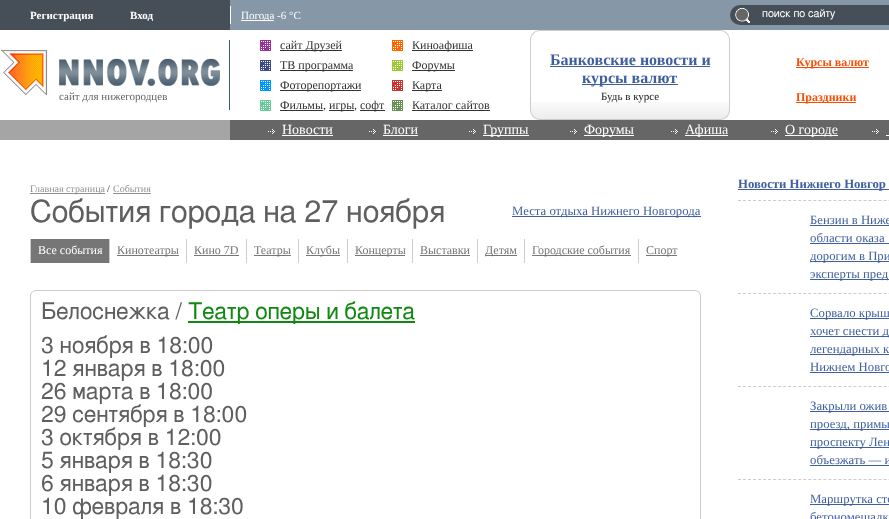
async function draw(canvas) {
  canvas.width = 889;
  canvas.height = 519;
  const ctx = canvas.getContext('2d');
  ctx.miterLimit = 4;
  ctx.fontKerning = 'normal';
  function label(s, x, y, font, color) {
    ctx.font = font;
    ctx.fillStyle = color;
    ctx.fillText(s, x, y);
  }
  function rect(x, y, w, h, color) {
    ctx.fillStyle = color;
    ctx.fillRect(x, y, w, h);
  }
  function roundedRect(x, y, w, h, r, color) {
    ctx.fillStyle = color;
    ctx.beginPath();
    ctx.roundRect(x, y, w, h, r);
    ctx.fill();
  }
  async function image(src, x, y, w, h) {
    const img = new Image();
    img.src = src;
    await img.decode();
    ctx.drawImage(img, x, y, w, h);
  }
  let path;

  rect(0, 0, 889, 519, '#fff');
  rect(230, 0, 659, 30, '#8697a8');
  rect(0, 0, 230, 30, '#464e57');
  label('Регистрация', 30, 19, 'bold 11px Liberation Serif', '#fff');
  label('Вход', 130, 19, 'bold 11px Liberation Serif', '#fff');
  rect(230, 6, 1, 18, '#fff');
  rect(241, 20, 33, 1, '#fff');
  label('Погода -6 °C', 241, 19, '11px Liberation Serif', '#fff');
  roundedRect(730, 5, 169, 20, 10, '#464e57');
  await image('assets/img1.png', 735, 7, 15, 16);
  label('поиск по сайту', 762, 17, '11px FreeSans', '#fff');
  await image('assets/img2.png', 1, 50, 219, 45);
  rect(229, 40, 1, 70, '#3d5e6f');
  label('сайт для нижегородцев', 59, 100, '11px Liberation Serif', '#666');
  rect(260, 40, 11, 11, '#939');
  await image('assets/img3.png', 261, 41, 9, 9);
  rect(280, 50, 62, 1, '#333');
  label('сайт Друзей', 280, 49, '12px Liberation Serif', '#333');
  rect(392, 40, 11, 11, '#f60');
  await image('assets/img4.png', 393, 41, 9, 9);
  rect(412, 50, 61, 1, '#333');
  label('Киноафиша', 412, 49, '12px Liberation Serif', '#333');
  rect(260, 60, 11, 11, '#3b4b8c');
  await image('assets/img5.png', 261, 61, 9, 9);
  rect(280, 70, 73, 1, '#333');
  label('ТВ программа', 280, 69, '12px Liberation Serif', '#333');
  rect(392, 60, 11, 11, '#9c3');
  await image('assets/img6.png', 393, 61, 9, 9);
  rect(412, 70, 43, 1, '#333');
  label('Форумы', 412, 69, '12px Liberation Serif', '#333');
  rect(260, 80, 11, 11, '#09f');
  await image('assets/img7.png', 261, 81, 9, 9);
  rect(280, 90, 81, 1, '#333');
  label('Фоторепортажи', 280, 89, '12px Liberation Serif', '#333');
  rect(392, 80, 11, 11, '#c33');
  await image('assets/img8.png', 393, 81, 9, 9);
  rect(412, 90, 30, 1, '#333');
  label('Карта', 412, 89, '12px Liberation Serif', '#333');
  rect(260, 100, 11, 11, '#6c9');
  await image('assets/img9.png', 261, 101, 9, 9);
  label('Фильмы', 280, 109, '12px Liberation Serif', '#333');
  rect(280, 110, 43, 1, '#333');
  label(',', 323, 109, '12px Liberation Serif', '#333');
  rect(329, 110, 25, 1, '#333');
  label(',', 354, 109, '12px Liberation Serif', '#333');
  label('игры', 329, 109, '12px Liberation Serif', '#333');
  rect(360, 110, 25, 1, '#333');
  label('софт', 360, 109, '12px Liberation Serif', '#333');
  rect(392, 100, 11, 11, '#6b8f59');
  await image('assets/img10.png', 393, 101, 9, 9);
  label('Каталог сайтов', 412, 109, '12px Liberation Serif', '#333');
  rect(412, 110, 78, 1, '#333');
  await image('assets/img11.png', 531, 102, 198, 17);
  ctx.strokeStyle = '#ccc';
  ctx.strokeRect(530.5, 30.5, 199, 89);
  await image('assets/img12.png', 530, 30, 9, 9);
  await image('assets/img13.png', 721, 30, 9, 9);
  label('Банковские новости и', 550, 65, 'bold 16px Liberation Serif', '#3f5f9e');
  rect(550, 66, 160, 1, '#3f5f9e');
  rect(582, 84, 96, 1, '#3f5f9e');
  label('курсы валют', 582, 83, 'bold 16px Liberation Serif', '#3f5f9e');
  label('Будь в курсе', 601, 100, '11px Liberation Serif', '#202020');
  await image('assets/img14.png', 530, 111, 9, 9);
  await image('assets/img15.png', 721, 111, 9, 9);
  rect(796, 67, 73, 1, '#f84e05');
  label('Курсы валют', 796, 66, 'bold 12px Liberation Serif', '#f84e05');
  rect(796, 102, 60, 1, '#f84e05');
  label('Праздники', 796, 101, 'bold 12px Liberation Serif', '#f84e05');
  rect(230, 120, 659, 20, '#666');
  rect(0, 120, 230, 20, '#a5a5a5');
  await image('assets/img16.png', 268, 129, 7, 5);
  label('Новости', 282, 134, '14px Liberation Serif', '#fff');
  rect(282, 135, 51, 1, '#fff');
  await image('assets/img16.png', 369, 129, 7, 5);
  label('Блоги', 383, 134, '14px Liberation Serif', '#fff');
  rect(383, 135, 35, 1, '#fff');
  await image('assets/img16.png', 469, 129, 7, 5);
  rect(483, 135, 46, 1, '#fff');
  label('Группы', 483, 134, '14px Liberation Serif', '#fff');
  await image('assets/img16.png', 570, 129, 7, 5);
  rect(584, 135, 50, 1, '#fff');
  label('Форумы', 584, 134, '14px Liberation Serif', '#fff');
  await image('assets/img16.png', 671, 129, 7, 5);
  rect(685, 135, 43, 1, '#fff');
  label('Афиша', 685, 134, '14px Liberation Serif', '#fff');
  await image('assets/img16.png', 771, 129, 7, 5);
  rect(785, 135, 53, 1, '#fff');
  label('О городе', 785, 134, '14px Liberation Serif', '#fff');
  await image('assets/img16.png', 872, 129, 7, 5);
  rect(886, 135, 3, 1, '#fff');
  rect(30, 193, 75, 1, '#8f8f8f');
  label('Главная страница', 30, 192, '10px Liberation Serif', '#8f8f8f');
  label('/', 107, 192, '10px Liberation Serif', '#202020');
  label('События', 113, 192, '10px Liberation Serif', '#8f8f8f');
  rect(113, 193, 38, 1, '#8f8f8f');
  label('События города на 27 ноября', 30, 222, '30.75px FreeSans', '#5f5f5f');
  rect(512, 216, 189, 1, '#3f5f9e');
  label('Места отдыха Нижнего Новгорода', 512, 215, '12.75px Liberation Serif', '#3f5f9e');
  rect(31, 239, 78, 24, '#767676');
  rect(30, 239, 1, 24, '#ccc');
  label('Все события', 38, 254, '12px Liberation Serif', '#fff');
  rect(109, 239, 1, 24, '#ccc');
  rect(117, 255, 62, 1, '#767676');
  label('Кинотеатры', 117, 254, '12px Liberation Serif', '#767676');
  rect(186, 239, 1, 24, '#ccc');
  label('Кино 7D', 194, 254, '12px Liberation Serif', '#767676');
  rect(194, 255, 45, 1, '#767676');
  rect(246, 239, 1, 24, '#ccc');
  rect(254, 255, 37, 1, '#767676');
  label('Театры', 254, 254, '12px Liberation Serif', '#767676');
  rect(298, 239, 1, 24, '#ccc');
  rect(306, 255, 34, 1, '#767676');
  label('Клубы', 306, 254, '12px Liberation Serif', '#767676');
  rect(347, 239, 1, 24, '#ccc');
  rect(355, 255, 50, 1, '#767676');
  label('Концерты', 355, 254, '12px Liberation Serif', '#767676');
  rect(412, 239, 1, 24, '#ccc');
  label('Выставки', 420, 254, '12px Liberation Serif', '#767676');
  rect(420, 255, 50, 1, '#767676');
  rect(477, 239, 1, 24, '#ccc');
  rect(485, 255, 32, 1, '#767676');
  label('Детям', 485, 254, '12px Liberation Serif', '#767676');
  rect(524, 239, 1, 24, '#ccc');
  rect(532, 255, 99, 1, '#767676');
  label('Городские события', 532, 254, '12px Liberation Serif', '#767676');
  rect(638, 239, 1, 24, '#ccc');
  rect(646, 255, 31, 1, '#767676');
  label('Спорт', 646, 254, '12px Liberation Serif', '#767676');
  ctx.strokeRect(30.5, 290.5, 670, 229);
  await image('assets/img17.png', 30, 290, 5, 5);
  await image('assets/img18.png', 696, 290, 5, 5);
  label('Белоснежка /', 41, 319, '23px FreeSans', '#5f5f5f');
  rect(188, 321, 227, 2, '#181');
  label('Театр оперы и балета', 188, 319, '23px FreeSans', '#181');
  label('3 ноября в 18:00', 41, 353, '23px FreeSans', '#5f5f5f');
  label('12 января в 18:00', 41, 376, '23px FreeSans', '#5f5f5f');
  label('26 марта в 18:00', 41, 399, '23px FreeSans', '#5f5f5f');
  label('29 сентября в 18:00', 41, 422, '23px FreeSans', '#5f5f5f');
  label('3 октября в 12:00', 41, 445, '23px FreeSans', '#5f5f5f');
  label('5 января в 18:30', 41, 468, '23px FreeSans', '#5f5f5f');
  label('6 января в 18:30', 41, 491, '23px FreeSans', '#5f5f5f');
  label('10 февраля в 18:30', 41, 514, '23px FreeSans', '#5f5f5f');
  rect(738, 189, 151, 1, '#3f5f9e');
  label('Новости Нижнего Новгор', 738, 188, 'bold 12.75px Liberation Serif', '#3f5f9e');
  path = new Path2D('M738 200.5H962');
  ctx.setLineDash([3, 2.02]);
  ctx.stroke(path);
  label('Бензин в Ниже', 810, 224, '12.75px Liberation Serif', '#3f5f9e');
  rect(810, 225, 79, 1, '#3f5f9e');
  label('области оказа', 810, 242, '12.75px Liberation Serif', '#3f5f9e');
  rect(810, 243, 79, 1, '#3f5f9e');
  rect(810, 261, 79, 1, '#3f5f9e');
  label('дорогим в При', 810, 260, '12.75px Liberation Serif', '#3f5f9e');
  rect(810, 279, 79, 1, '#3f5f9e');
  label('эксперты пред', 810, 278, '12.75px Liberation Serif', '#3f5f9e');
  path = new Path2D('M738 293.5H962');
  ctx.stroke(path);
  rect(810, 318, 79, 1, '#3f5f9e');
  label('Сорвало крыш', 810, 317, '12.75px Liberation Serif', '#3f5f9e');
  rect(810, 336, 79, 1, '#3f5f9e');
  label('хочет снести д', 810, 335, '12.75px Liberation Serif', '#3f5f9e');
  rect(810, 354, 79, 1, '#3f5f9e');
  label('легендарных к', 810, 353, '12.75px Liberation Serif', '#3f5f9e');
  label('Нижнем Новго', 810, 371, '12.75px Liberation Serif', '#3f5f9e');
  rect(810, 372, 79, 1, '#3f5f9e');
  path = new Path2D('M738 386.5H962');
  ctx.stroke(path);
  rect(810, 411, 79, 1, '#3f5f9e');
  label('Закрыли ожив', 810, 410, '12.75px Liberation Serif', '#3f5f9e');
  rect(810, 429, 79, 1, '#3f5f9e');
  label('проезд, примы', 810, 428, '12.75px Liberation Serif', '#3f5f9e');
  rect(810, 447, 79, 1, '#3f5f9e');
  label('проспекту Лен', 810, 446, '12.75px Liberation Serif', '#3f5f9e');
  label('объезжать — и', 810, 464, '12.75px Liberation Serif', '#3f5f9e');
  rect(810, 465, 79, 1, '#3f5f9e');
  path = new Path2D('M738 479.5H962');
  ctx.stroke(path);
  rect(810, 504, 79, 1, '#3f5f9e');
  label('Маршрутка сто', 810, 503, '12.75px Liberation Serif', '#3f5f9e');
  label('бетономешалк', 810, 521, '12.75px Liberation Serif', '#3f5f9e');
}

draw(document.querySelector('canvas'));
